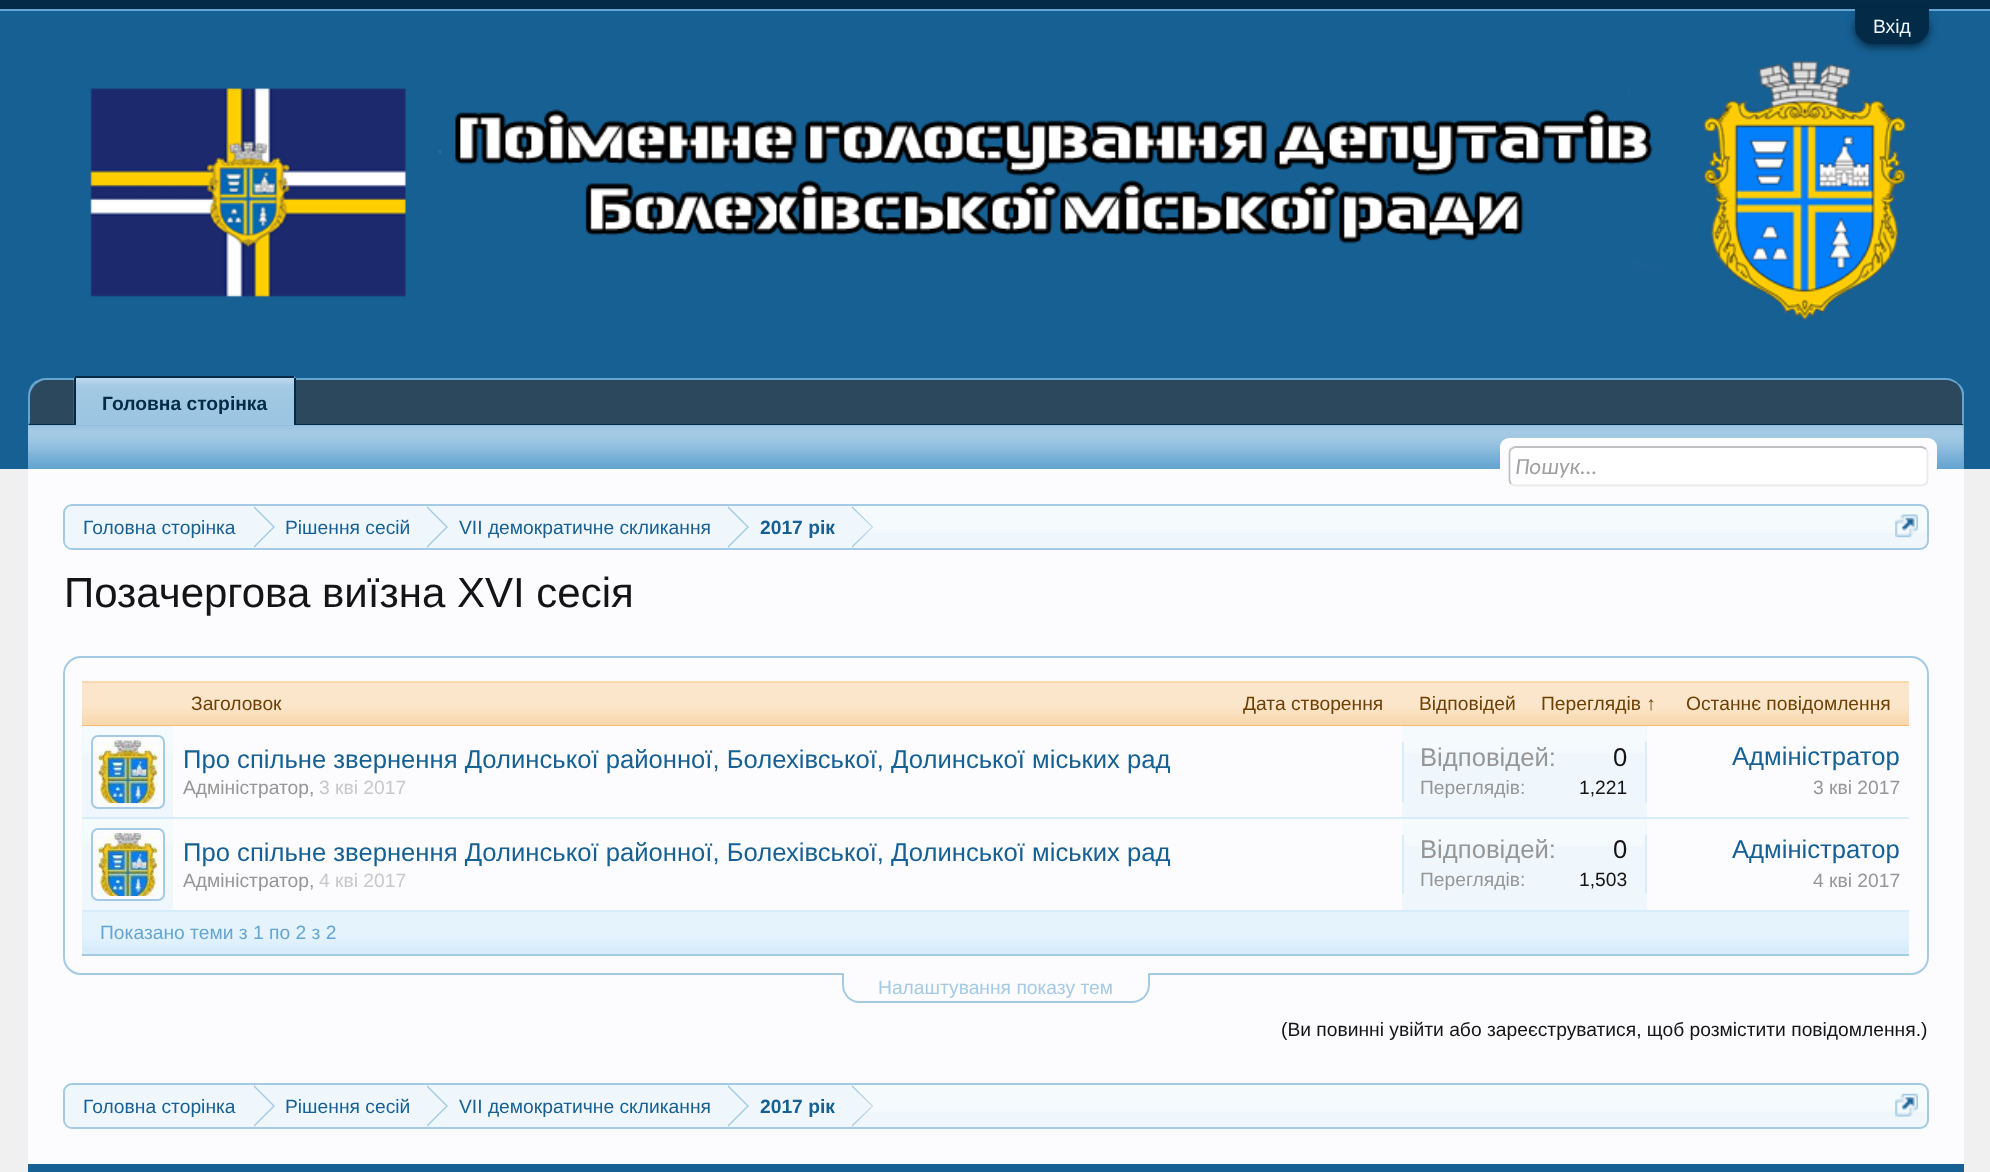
async function draw(canvas) {
  canvas.width = 1990;
  canvas.height = 1172;
  const ctx = canvas.getContext('2d');
  ctx.miterLimit = 4;
  ctx.fontKerning = 'normal';
  function label(s, x, y, font, color) {
    ctx.font = font;
    ctx.fillStyle = color;
    ctx.fillText(s, x, y);
  }
  function rect(x, y, w, h, color) {
    ctx.fillStyle = color;
    ctx.fillRect(x, y, w, h);
  }
  function roundedRect(x, y, w, h, r, color) {
    ctx.fillStyle = color;
    ctx.beginPath();
    ctx.roundRect(x, y, w, h, r);
    ctx.fill();
  }
  async function image(src, x, y, w, h) {
    const img = new Image();
    img.src = src;
    await img.decode();
    ctx.drawImage(img, x, y, w, h);
  }
  let path;

  rect(0, 0, 1990, 1172, '#f0f0f0');
  rect(0, 0, 1990, 9, '#032a46');
  rect(0, 9, 1990, 2, '#65a5d1');
  rect(0, 11, 1990, 458, '#176093');
  await image('assets/img1.png', 90, 61, 1816, 260);
  ctx.fillStyle = '#032a46';
  ctx.filter = 'blur(4.5px)';
  ctx.beginPath();
  ctx.roundRect(1855, 12, 74, 35, 17.5);
  ctx.fill();
  ctx.filter = 'none';
  ctx.beginPath();
  ctx.roundRect(1855, 9, 74, 35, [0, 0, 17.5, 17.5]);
  ctx.fill();
  label('Вхід', 1873, 33, '19.25px Liberation Sans', '#f0f7fc');
  ctx.fillStyle = '#2b485c';
  ctx.beginPath();
  ctx.roundRect(28, 378, 1936, 47, [18, 18, 0, 0]);
  ctx.fill();
  ctx.fillStyle = '#65a5d1';
  path = new Path2D('M46 378C41 378 36 380 33 383L35 385C38 382 42 380 46 380H1946C1950 380 1954 382 1957 384L1958 383C1955 380 1951 378 1946 378Z');
  ctx.fill(path);
  path = new Path2D('M1964 425L1962 424V396C1962 391 1960 387 1957 384L1958 383C1961 385 1963 388 1964 392Z');
  ctx.fill(path);
  ctx.fillStyle = '#032a46';
  path = new Path2D('M1963 425H28L30 423V424H1962Z');
  ctx.fill(path);
  ctx.fillStyle = '#65a5d1';
  path = new Path2D('M28 396V425L30 423V396C30 392 32 388 35 385L33 383C30 386 28 391 28 396Z');
  ctx.fill(path);
  ctx.beginPath();
  ctx.roundRect(74, 376, 222, 49, [4, 4, 0, 0]);
  ctx.fill();
  await image('assets/img2.png', 73, 378, 221, 47);
  rect(75, 376, 219, 2, '#032a46');
  rect(294, 378, 2, 47, '#032a46');
  rect(74, 378, 2, 47, '#032a46');
  label('Головна сторінка', 102, 410, 'bold 19.25px Liberation Sans', '#032a46');
  rect(28, 425, 1936, 44, '#65a5d1');
  await image('assets/img3.png', 28, 425, 1936, 42);
  rect(28, 469, 1936, 695, '#fcfcff');
  roundedRect(1500, 438, 437, 49, 9, '#fcfcff');
  rect(1500, 446, 437, 1, '#fcfcff');
  roundedRect(1509, 446, 420, 41, 7, '#fff');
  path = new Path2D('M1926 449C1927 450 1927.5 451.5 1927.5 453V479.5C1927.5 481 1927 482.5 1926 484C1924.5 485 1923 485.5 1921.5 485.5H1515.5C1514 485.5 1512.5 485 1511 484');
  ctx.strokeStyle = '#e9e9e9';
  ctx.lineWidth = 1.8;
  ctx.stroke(path);
  path = new Path2D('M1511 484C1510 482.5 1509.5 481 1509.5 479.5V453C1509.5 451.5 1510 450 1511 449C1512.5 448 1514 447 1515.5 447H1921.5C1923 447 1924.5 448 1926 449');
  ctx.strokeStyle = '#c0c0c0';
  ctx.stroke(path);
  label('Пошук...', 1515, 474, 'italic 23px Carlito', '#a0a0a0');
  roundedRect(63, 504, 1866, 46, 9, '#f0f7fc');
  await image('assets/img4.png', 63, 506, 1865, 27);
  ctx.beginPath();
  ctx.roundRect(64, 505, 1864, 44, 8);
  ctx.strokeStyle = '#a5cae4';
  ctx.lineWidth = 2;
  ctx.stroke();
  ctx.save();
  ctx.beginPath();
  ctx.roundRect(65, 506, 1862, 42, 7);
  ctx.clip();
  ctx.beginPath();
  ctx.roundRect(65, 506, 189, 44, [9, 0, 0, 9]);
  ctx.fill();
  ctx.restore();
  label('Головна сторінка', 83, 534, '19.25px Liberation Sans', '#176093');
  rect(254, 506, 598, 27, '#f0f7fc');
  ctx.fillStyle = '#a5cae4';
  path = new Path2D('M254 548V506L275 527Z');
  ctx.fill(path);
  ctx.fillStyle = '#f0f7fc';
  path = new Path2D('M252 548V506L273 527Z');
  ctx.fill(path);
  label('Рішення сесій', 285, 534, '19.25px Liberation Sans', '#176093');
  ctx.fillStyle = '#a5cae4';
  path = new Path2D('M427 548V506L448 527Z');
  ctx.fill(path);
  ctx.fillStyle = '#f0f7fc';
  path = new Path2D('M425 548V506L446 527Z');
  ctx.fill(path);
  label('VII демократичне скликання', 459, 534, '19.25px Liberation Sans', '#176093');
  ctx.fillStyle = '#a5cae4';
  path = new Path2D('M728 548V506L749 527Z');
  ctx.fill(path);
  ctx.fillStyle = '#f0f7fc';
  path = new Path2D('M726 548V506L747 527Z');
  ctx.fill(path);
  label('2017 рік', 760, 534, 'bold 19.25px Liberation Sans', '#176093');
  ctx.fillStyle = '#a5cae4';
  path = new Path2D('M852 548V506L873 527Z');
  ctx.fill(path);
  ctx.fillStyle = '#f0f7fc';
  path = new Path2D('M850 548V506L872 527Z');
  ctx.fill(path);
  await image('assets/img5.png', 1895, 514, 23, 24);
  label('Позачергова виїзна XVI сесія', 64, 607, '42px Liberation Sans', '#141414');
  ctx.beginPath();
  ctx.roundRect(64, 657, 1864, 317, 17);
  ctx.stroke();
  rect(82, 681, 1827, 44, '#f9d9b0');
  await image('assets/img6.png', 82, 683, 1827, 37);
  rect(82, 725, 1827, 1, '#f9bc6d');
  label('Заголовок', 191, 710, '19.25px Liberation Sans', '#6d3f03');
  label('Дата створення', 1243, 710, '19.25px Liberation Sans', '#6d3f03');
  label('Відповідей', 1419, 710, '19.25px Liberation Sans', '#6d3f03');
  label('Переглядів ↑', 1541, 710, '19.25px Liberation Sans', '#6d3f03');
  label('Останнє повідомлення', 1686, 710, '19.25px Liberation Sans', '#6d3f03');
  rect(82, 817, 1827, 2, '#d7edfc');
  rect(82, 726, 91, 91, '#f0f7fc');
  await image('assets/img7.png', 83, 727, 90, 26);
  ctx.fillStyle = '#fcfcff';
  ctx.beginPath();
  ctx.roundRect(92, 736, 72, 72, 6);
  ctx.fill();
  ctx.stroke();
  await image('assets/img8.png', 96, 740, 63, 64);
  label('Про спільне звернення Долинської районної, Болехівської, Долинської міських рад', 183, 768, '25.65px Liberation Sans', '#176093');
  label('Адміністратор,', 183, 794, '19.25px Liberation Sans', '#969696');
  label('3 кві 2017', 319, 794, '19.25px Liberation Sans', '#c8c8c8');
  rect(1402, 726, 245, 91, '#f0f7fc');
  await image('assets/img9.png', 1402, 727, 244, 26);
  rect(1645, 742, 2, 60, '#d7edfc');
  rect(1402, 742, 2, 60, '#d7edfc');
  label('Відповідей:', 1420, 766, '25.65px Liberation Sans', '#969696');
  label('0', 1613, 766, '25.65px Liberation Sans', '#141414');
  label('Переглядів:', 1420, 794, '19.25px Liberation Sans', '#969696');
  label('1,221', 1579, 794, '19.25px Liberation Sans', '#141414');
  label('Адміністратор', 1732, 765, '25.65px Liberation Sans', '#176093');
  label('3 кві 2017', 1813, 794, '19.25px Liberation Sans', '#969696');
  rect(82, 910, 1827, 44, '#d7edfc');
  rect(82, 819, 91, 91, '#f0f7fc');
  await image('assets/img10.png', 83, 819, 90, 27);
  ctx.fillStyle = '#fcfcff';
  ctx.beginPath();
  ctx.roundRect(92, 829, 72, 71, 6);
  ctx.fill();
  ctx.stroke();
  await image('assets/img11.png', 96, 833, 63, 63);
  label('Про спільне звернення Долинської районної, Болехівської, Долинської міських рад', 183, 861, '25.65px Liberation Sans', '#176093');
  label('Адміністратор,', 183, 887, '19.25px Liberation Sans', '#969696');
  label('4 кві 2017', 319, 887, '19.25px Liberation Sans', '#c8c8c8');
  rect(1402, 819, 245, 91, '#f0f7fc');
  await image('assets/img12.png', 1402, 819, 244, 27);
  rect(1645, 835, 2, 59, '#d7edfc');
  rect(1402, 835, 2, 59, '#d7edfc');
  label('Відповідей:', 1420, 858, '25.65px Liberation Sans', '#969696');
  label('0', 1613, 858, '25.65px Liberation Sans', '#141414');
  label('Переглядів:', 1420, 886, '19.25px Liberation Sans', '#969696');
  label('1,503', 1579, 886, '19.25px Liberation Sans', '#141414');
  label('Адміністратор', 1732, 858, '25.65px Liberation Sans', '#176093');
  label('4 кві 2017', 1813, 887, '19.25px Liberation Sans', '#969696');
  await image('assets/img13.png', 82, 912, 1827, 35);
  rect(82, 954, 1827, 2, '#a5cae4');
  label('Показано теми з 1 по 2 з 2', 100, 939, '19.25px Liberation Sans', '#65a5d1');
  ctx.fillStyle = '#fcfcff';
  ctx.beginPath();
  ctx.roundRect(842, 973, 308, 30, [0, 0, 18, 18]);
  ctx.fill();
  ctx.fillStyle = '#a5cae4';
  path = new Path2D('M842 973H1150V985C1150 995 1142 1003 1132 1003H859C850 1003 842 995 842 985ZM844 973H1148V985C1148 994 1141 1001 1132 1001H859C851 1001 844 994 844 985Z');
  ctx.fill(path, 'evenodd');
  label('Налаштування показу тем', 878, 994, '19.25px Liberation Sans', '#a5cae4');
  label('(Ви повинні увійти або зареєструватися, щоб розмістити повідомлення.)', 1281, 1036, '19.25px Liberation Sans', '#141414');
  roundedRect(63, 1083, 1866, 46, 9, '#f0f7fc');
  await image('assets/img14.png', 63, 1085, 1864, 27);
  ctx.beginPath();
  ctx.roundRect(64, 1084, 1864, 44, 8);
  ctx.stroke();
  ctx.save();
  ctx.beginPath();
  ctx.roundRect(65, 1085, 1862, 42, 7);
  ctx.clip();
  ctx.beginPath();
  ctx.roundRect(65, 1085, 189, 44, [9, 0, 0, 9]);
  ctx.fill();
  ctx.restore();
  label('Головна сторінка', 83, 1113, '19.25px Liberation Sans', '#176093');
  rect(254, 1085, 598, 27, '#f0f7fc');
  ctx.fillStyle = '#a5cae4';
  path = new Path2D('M254 1127V1085L275 1106Z');
  ctx.fill(path);
  ctx.fillStyle = '#f0f7fc';
  path = new Path2D('M252 1127V1085L273 1106Z');
  ctx.fill(path);
  label('Рішення сесій', 285, 1113, '19.25px Liberation Sans', '#176093');
  ctx.fillStyle = '#a5cae4';
  path = new Path2D('M427 1127V1085L448 1106Z');
  ctx.fill(path);
  ctx.fillStyle = '#f0f7fc';
  path = new Path2D('M425 1127V1085L446 1106Z');
  ctx.fill(path);
  label('VII демократичне скликання', 459, 1113, '19.25px Liberation Sans', '#176093');
  ctx.fillStyle = '#a5cae4';
  path = new Path2D('M728 1127V1085L749 1106Z');
  ctx.fill(path);
  ctx.fillStyle = '#f0f7fc';
  path = new Path2D('M726 1127V1085L747 1106Z');
  ctx.fill(path);
  label('2017 рік', 760, 1113, 'bold 19.25px Liberation Sans', '#176093');
  ctx.fillStyle = '#a5cae4';
  path = new Path2D('M852 1127V1085L873 1106Z');
  ctx.fill(path);
  ctx.fillStyle = '#f0f7fc';
  path = new Path2D('M850 1127V1085L872 1106Z');
  ctx.fill(path);
  await image('assets/img15.png', 1895, 1093, 23, 24);
  rect(28, 1164, 1936, 8, '#176093');
}

draw(document.querySelector('canvas'));
